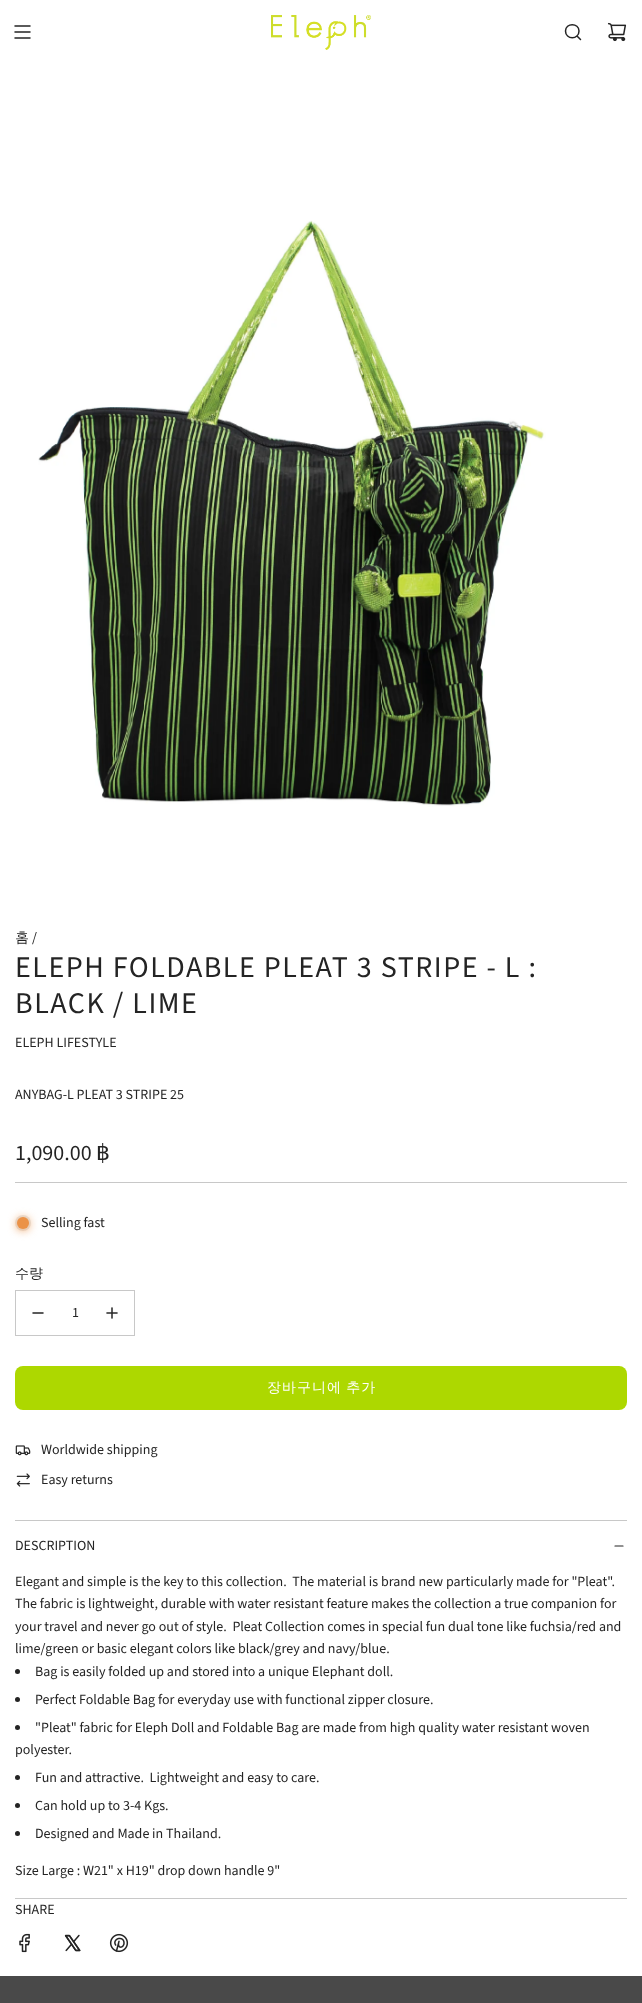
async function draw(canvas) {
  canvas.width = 642;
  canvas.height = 2003;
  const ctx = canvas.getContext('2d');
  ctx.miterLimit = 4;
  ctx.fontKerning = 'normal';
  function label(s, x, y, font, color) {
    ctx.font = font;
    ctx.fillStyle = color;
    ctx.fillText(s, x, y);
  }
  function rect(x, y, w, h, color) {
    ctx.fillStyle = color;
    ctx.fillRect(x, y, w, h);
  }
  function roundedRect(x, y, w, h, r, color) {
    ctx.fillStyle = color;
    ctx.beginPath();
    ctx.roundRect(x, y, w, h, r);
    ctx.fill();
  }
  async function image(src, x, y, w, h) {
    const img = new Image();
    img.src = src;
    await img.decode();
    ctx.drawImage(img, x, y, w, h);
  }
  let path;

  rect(0, 0, 642, 2003, '#fff');
  path = new Path2D('M15 26H30M15 32H30M15 38H30');
  ctx.strokeStyle = '#242424';
  ctx.lineWidth = 1.5;
  ctx.lineCap = 'round';
  ctx.lineJoin = 'round';
  ctx.stroke(path);
  await image('assets/img1.png', 271, 15, 100, 35);
  path = new Path2D('M577 36L580.5 39.5M565.5 31C565.5 40 579 40 579 31C579 22.5 565.5 22.5 565.5 31Z');
  ctx.stroke(path);
  await image('assets/img2.png', 607, 22, 20, 20);
  await image('assets/img3.png', 38, 220, 508, 587);
  label('홈', 15, 942, '500 14px WenQuanYi Zen Hei', '#242424');
  label('/', 32, 942, '14px Source Sans Pro', '#242424');
  ctx.letterSpacing = '1.5px';
  label('ELEPH FOLDABLE PLEAT 3 STRIPE - L :', 15, 977, '30px Source Sans Pro', '#242424');
  label('BLACK / LIME', 15, 1013, '30px Source Sans Pro', '#242424');
  ctx.letterSpacing = '0px';
  label('ELEPH LIFESTYLE', 15, 1047, '14px Source Sans Pro', '#242424');
  label('ANYBAG-L PLEAT 3 STRIPE 25', 15, 1099, '14px Source Sans Pro', '#242424');
  label('1,090.00', 15, 1160, '22px Source Sans Pro', '#242424');
  label('฿', 96, 1160, '22px DejaVu Sans', '#242424');
  rect(15, 1182, 612, 1, '#c8c8c8');
  ctx.fillStyle = '#e9e9e9';
  ctx.beginPath();
  ctx.arc(23, 1223, 8, 0, 2 * Math.PI);
  ctx.fill();
  ctx.fillStyle = '#eb9247';
  ctx.filter = 'blur(5px)';
  ctx.beginPath();
  ctx.roundRect(17, 1218, 12, 12, 6);
  ctx.fill();
  ctx.filter = 'none';
  ctx.beginPath();
  ctx.arc(23, 1223, 6, 0, 2 * Math.PI);
  ctx.fill();
  label('Selling fast', 41, 1227, '14px Source Sans Pro', '#242424');
  label('수량', 15, 1278, '500 14px WenQuanYi Zen Hei', '#242424');
  ctx.strokeStyle = '#c8c8c8';
  ctx.lineWidth = 1;
  ctx.lineJoin = 'miter';
  ctx.strokeRect(15.5, 1290.5, 119, 45);
  path = new Path2D('M33 1313H43');
  ctx.strokeStyle = '#242424';
  ctx.lineWidth = 1.5;
  ctx.lineJoin = 'round';
  ctx.stroke(path);
  label('1', 72, 1317, '14px Source Sans Pro', '#242424');
  await image('assets/img4.png', 106, 1307, 12, 12);
  roundedRect(15, 1366, 612, 44, 8, '#add800');
  ctx.letterSpacing = '1px';
  ctx.wordSpacing = '-1px';
  label('장바구니에 추가', 267, 1392, '500 14px WenQuanYi Zen Hei', '#fff');
  await image('assets/img5.png', 15, 1445, 16, 11);
  ctx.letterSpacing = '0px';
  ctx.wordSpacing = '0px';
  label('Worldwide shipping', 41, 1454, '14px Source Sans Pro', '#242424');
  await image('assets/img6.png', 16, 1473, 14, 14);
  label('Easy returns', 41, 1484, '14px Source Sans Pro', '#242424');
  rect(15, 1520, 612, 1, '#c8c8c8');
  rect(15, 1898, 612, 1, '#c8c8c8');
  label('DESCRIPTION', 15, 1550, '14px Source Sans Pro', '#242424');
  path = new Path2D('M615 1546H623');
  ctx.lineWidth = 1.2;
  ctx.stroke(path);
  label('Elegant and simple is the key to this collection.  The material is brand new particularly made for "Pleat".', 15, 1586, '14px Source Sans Pro', '#242424');
  label('The fabric is lightweight, durable with water resistant feature makes the collection a true companion for', 15, 1608, '14px Source Sans Pro', '#242424');
  label('your travel and never go out of style.  Pleat Collection comes in special fun dual tone like fuchsia/red and', 15, 1631, '14px Source Sans Pro', '#242424');
  label('lime/green or basic elegant colors like black/grey and navy/blue.', 15, 1653, '14px Source Sans Pro', '#242424');
  ctx.beginPath();
  ctx.arc(17.5, 1671.5, 2.5, 0, 2 * Math.PI);
  ctx.fill();
  label('Bag is easily folded up and stored into a unique Elephant doll.', 35, 1676, '14px Source Sans Pro', '#242424');
  ctx.beginPath();
  ctx.arc(17.5, 1699.5, 2.5, 0, 2 * Math.PI);
  ctx.fill();
  label('Perfect Foldable Bag for everyday use with functional zipper closure.', 35, 1704, '14px Source Sans Pro', '#242424');
  ctx.beginPath();
  ctx.arc(17.5, 1727.5, 2.5, 0, 2 * Math.PI);
  ctx.fill();
  label('"Pleat" fabric for Eleph Doll and Foldable Bag are made from high quality water resistant woven', 35, 1732, '14px Source Sans Pro', '#242424');
  label('polyester.', 15, 1754, '14px Source Sans Pro', '#242424');
  ctx.beginPath();
  ctx.arc(17.5, 1777.5, 2.5, 0, 2 * Math.PI);
  ctx.fill();
  label('Fun and attractive.  Lightweight and easy to care.', 35, 1782, '14px Source Sans Pro', '#242424');
  ctx.beginPath();
  ctx.arc(17.5, 1805.5, 2.5, 0, 2 * Math.PI);
  ctx.fill();
  label('Can hold up to 3-4 Kgs.', 35, 1810, '14px Source Sans Pro', '#242424');
  ctx.beginPath();
  ctx.arc(17.5, 1833.5, 2.5, 0, 2 * Math.PI);
  ctx.fill();
  label('Designed and Made in Thailand.', 35, 1838, '14px Source Sans Pro', '#242424');
  label('Size Large : W21" x H19" drop down handle 9"', 15, 1875, '14px Source Sans Pro', '#242424');
  label('SHARE', 15, 1914, '14px Source Sans Pro', '#242424');
  await image('assets/img7.png', 19, 1933, 11, 20);
  await image('assets/img8.png', 64, 1934, 17, 18);
  await image('assets/img9.png', 109, 1933, 20, 20);
  rect(0, 1976, 642, 27, '#494949');
}

draw(document.querySelector('canvas'));
